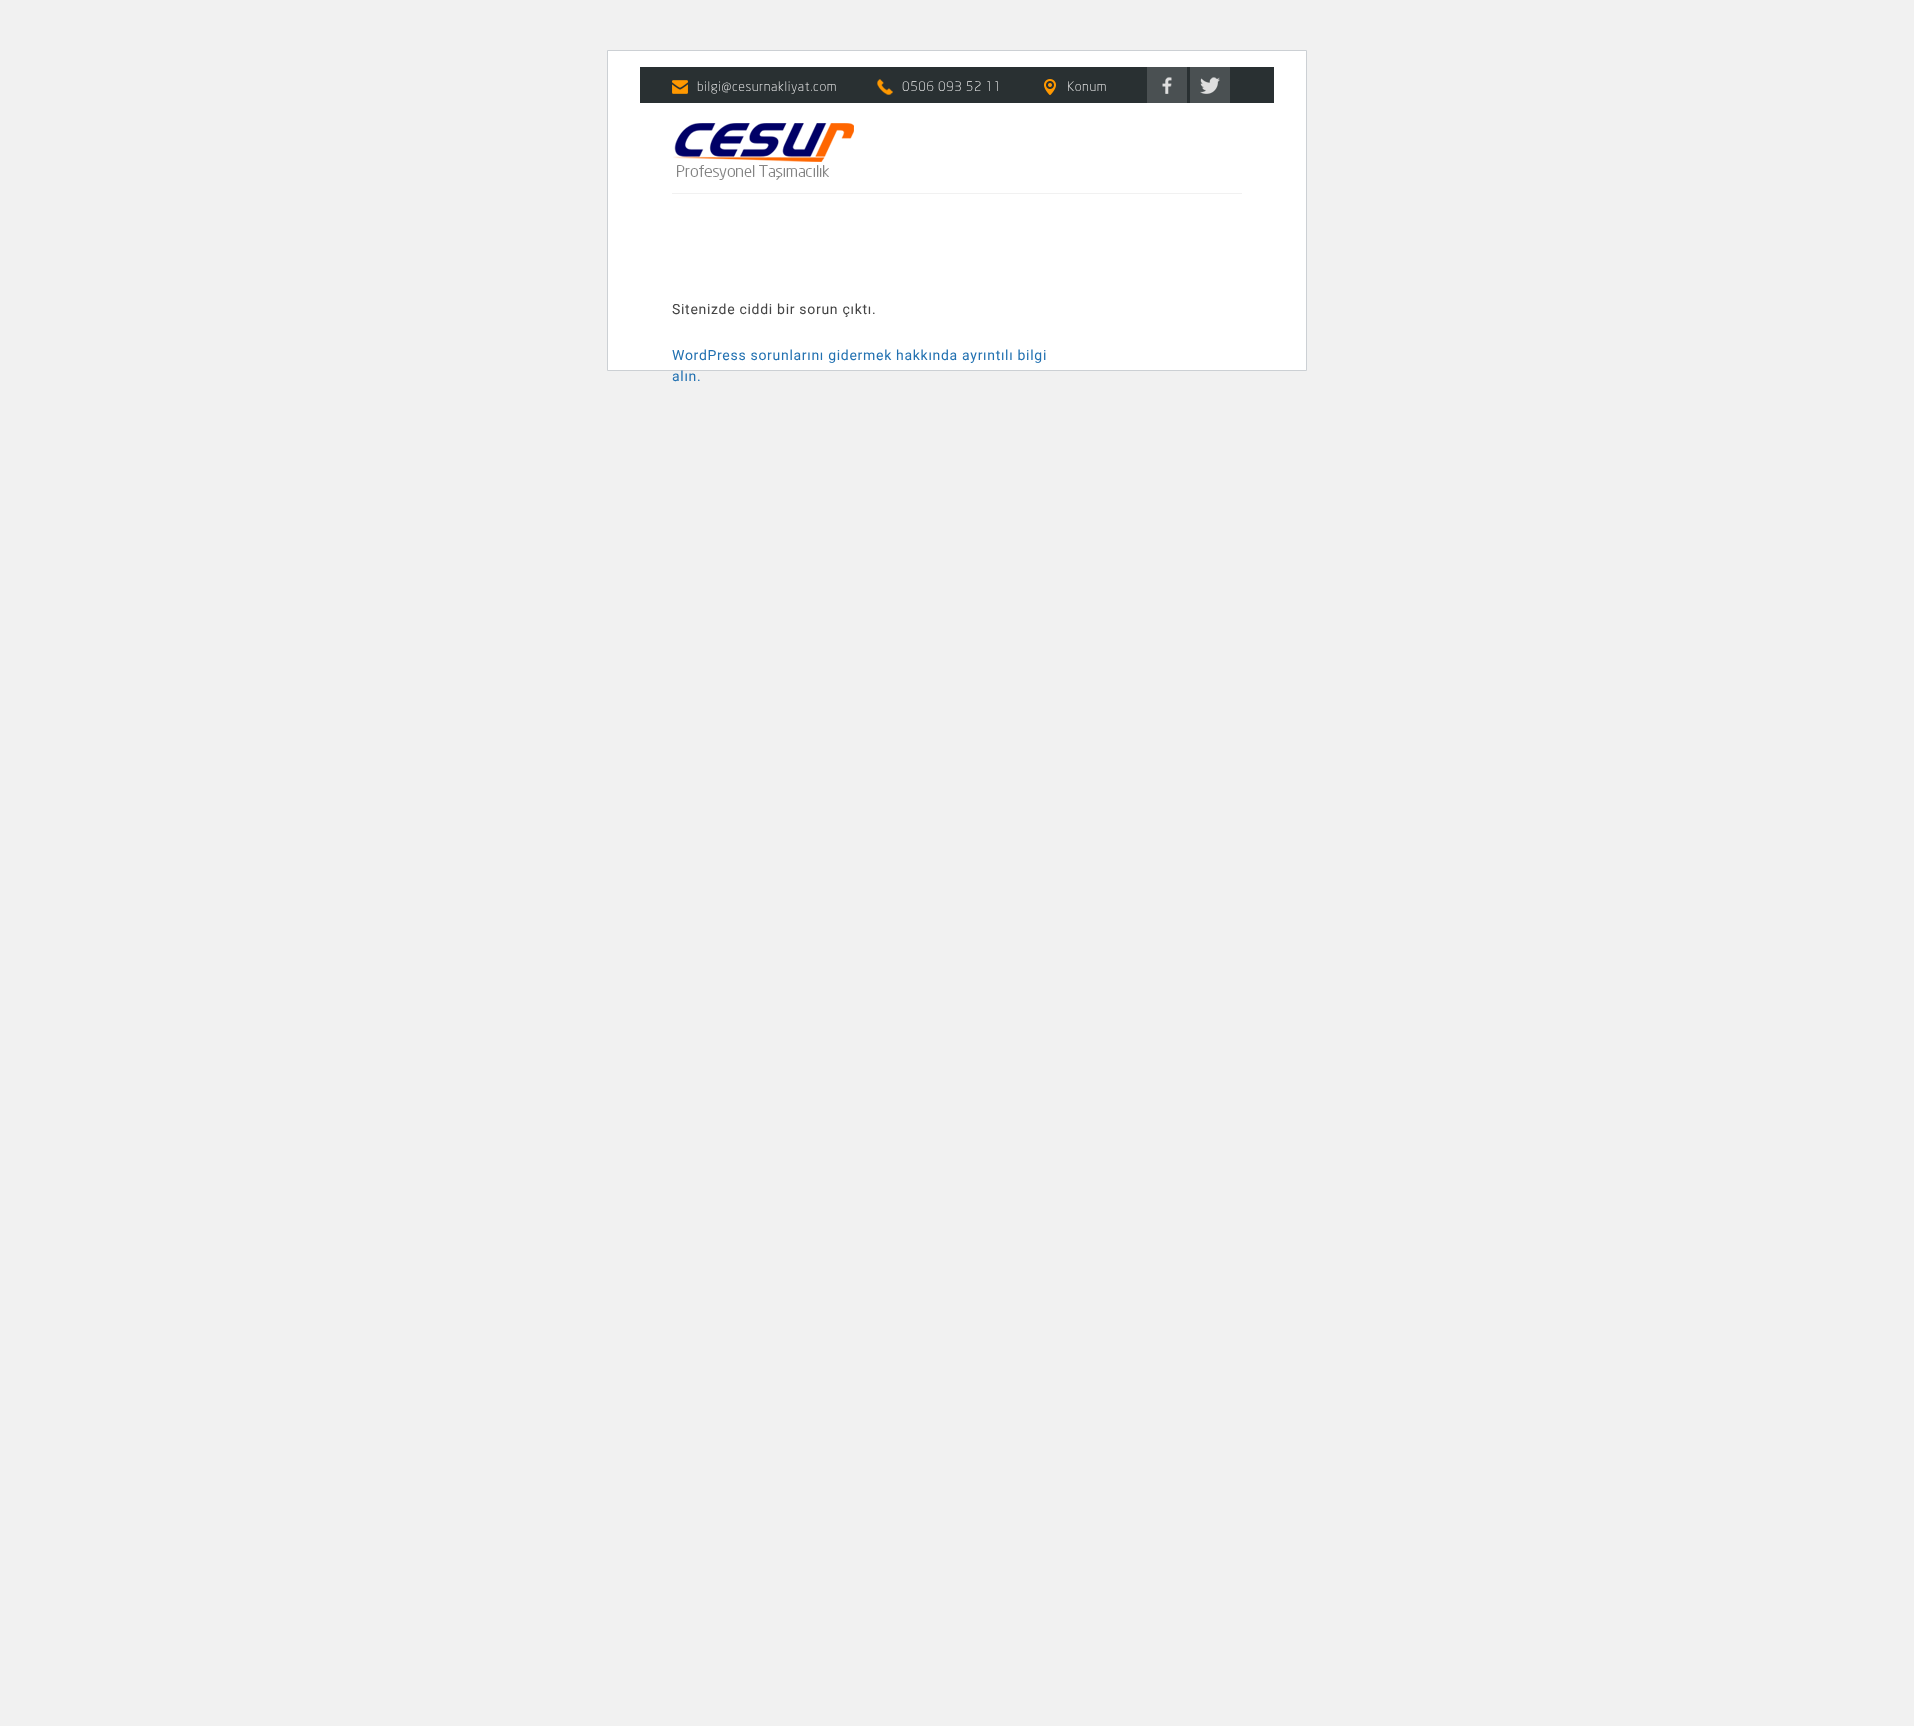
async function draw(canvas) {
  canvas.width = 1914;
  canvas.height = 1726;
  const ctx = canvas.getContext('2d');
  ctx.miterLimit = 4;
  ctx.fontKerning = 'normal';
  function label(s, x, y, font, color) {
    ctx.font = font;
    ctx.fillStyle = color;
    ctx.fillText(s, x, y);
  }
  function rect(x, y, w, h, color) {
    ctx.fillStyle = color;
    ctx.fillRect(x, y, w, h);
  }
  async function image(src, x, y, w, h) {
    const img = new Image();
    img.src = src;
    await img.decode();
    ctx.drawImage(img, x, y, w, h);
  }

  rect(0, 0, 1914, 1726, '#f1f1f1');
  ctx.fillStyle = '#fff';
  ctx.beginPath();
  ctx.rect(607.5, 50.5, 699, 320);
  ctx.fill();
  ctx.strokeStyle = '#ccd0d4';
  ctx.stroke();
  rect(640, 67, 634, 36, '#293032');
  await image('assets/img1.png', 672, 80, 16, 14);
  ctx.letterSpacing = '0.6px';
  label('bilgi@cesurnakliyat.com', 697, 91, '300 13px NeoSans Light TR', '#f0f0f0');
  await image('assets/img2.png', 877, 79, 16, 16);
  label('0506 093 52 11', 902, 91, '300 13px NeoSans Light TR', '#f0f0f0');
  await image('assets/img3.png', 1044, 79, 12, 16);
  label('Konum', 1067, 91, '300 13px NeoSans Light TR', '#f0f0f0');
  rect(1147, 67, 40, 36, '#4a5052');
  await image('assets/img4.png', 1162, 77, 10, 17);
  rect(1190, 67, 40, 36, '#4a5052');
  await image('assets/img5.png', 1200, 77, 20, 17);
  await image('assets/img6.png', 673, 123, 181, 57);
  rect(672, 193, 570, 1, '#f1f1f1');
  ctx.letterSpacing = '0.7px';
  label('Sitenizde ciddi bir sorun çıktı.', 672, 314, '14px Roboto', '#444');
  label('WordPress sorunlarını gidermek hakkında ayrıntılı bilgi', 672, 360, '14px Roboto', '#2271b1');
  label('alın.', 672, 381, '14px Roboto', '#2271b1');
}

draw(document.querySelector('canvas'));
